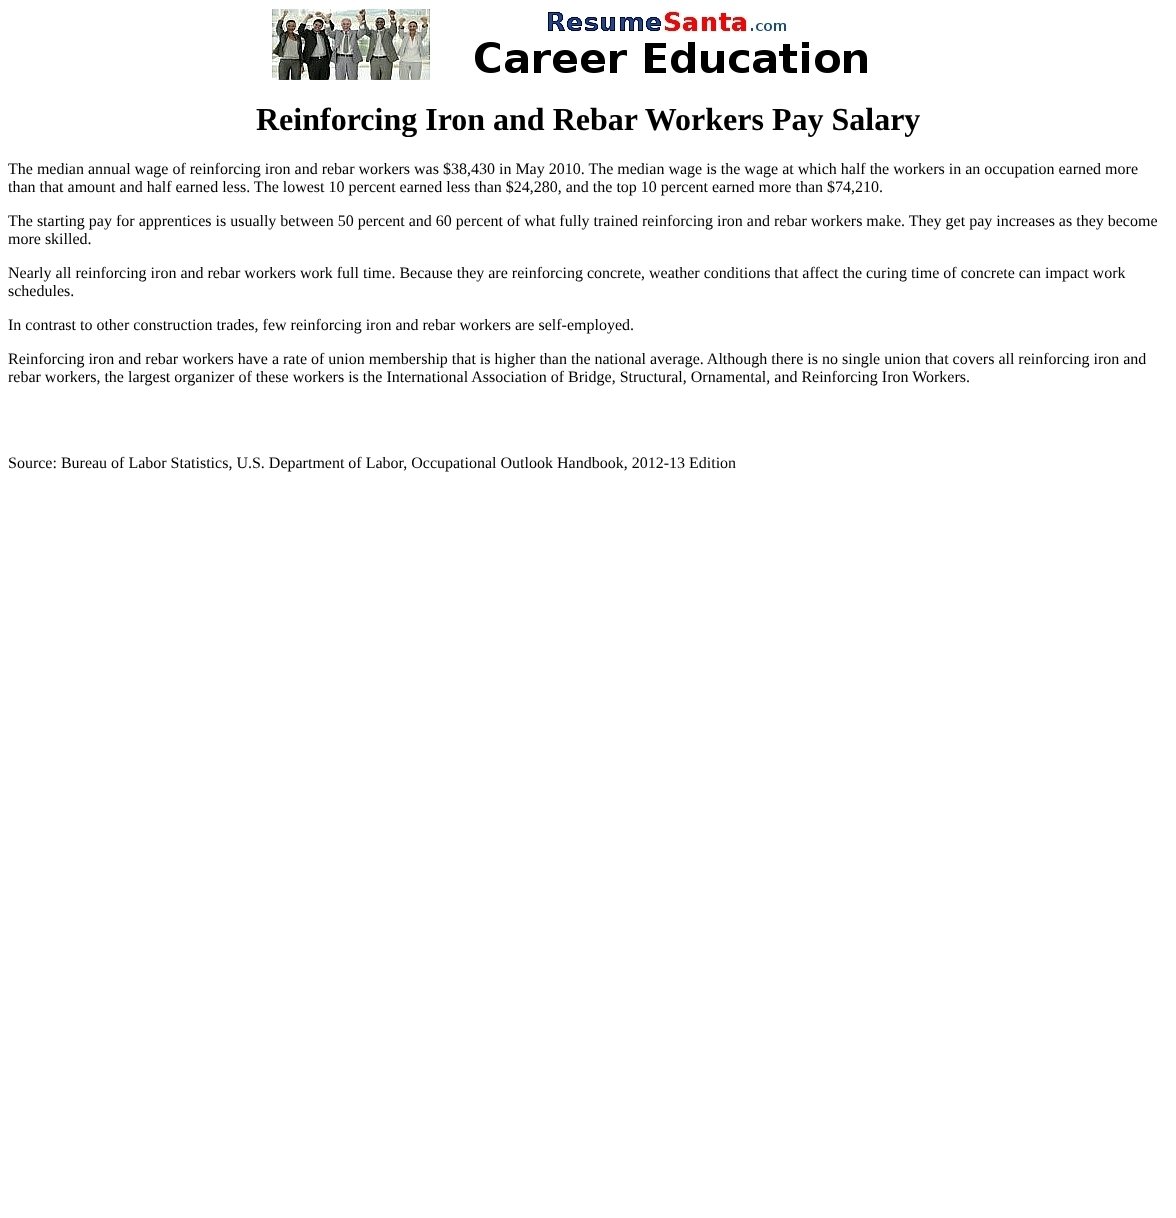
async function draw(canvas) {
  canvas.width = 1176;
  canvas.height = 1218;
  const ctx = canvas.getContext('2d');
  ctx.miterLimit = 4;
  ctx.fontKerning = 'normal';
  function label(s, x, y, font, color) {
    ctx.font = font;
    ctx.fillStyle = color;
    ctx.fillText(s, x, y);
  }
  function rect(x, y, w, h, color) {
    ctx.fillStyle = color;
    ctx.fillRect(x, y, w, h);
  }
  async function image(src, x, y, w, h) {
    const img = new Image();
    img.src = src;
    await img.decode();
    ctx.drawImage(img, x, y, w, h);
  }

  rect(0, 0, 1176, 1218, '#fff');
  await image('assets/img1.png', 271, 8, 596, 72);
  label('Reinforcing Iron and Rebar Workers Pay Salary', 256, 130, 'bold 32px Liberation Serif', '#000');
  label('The median annual wage of reinforcing iron and rebar workers was $38,430 in May 2010. The median wage is the wage at which half the workers in an occupation earned more', 8, 174, '16px Liberation Serif', '#000');
  label('than that amount and half earned less. The lowest 10 percent earned less than $24,280, and the top 10 percent earned more than $74,210.', 8, 192, '16px Liberation Serif', '#000');
  label('The starting pay for apprentices is usually between 50 percent and 60 percent of what fully trained reinforcing iron and rebar workers make. They get pay increases as they become', 8, 226, '16px Liberation Serif', '#000');
  label('more skilled.', 8, 244, '16px Liberation Serif', '#000');
  label('Nearly all reinforcing iron and rebar workers work full time. Because they are reinforcing concrete, weather conditions that affect the curing time of concrete can impact work', 8, 278, '16px Liberation Serif', '#000');
  label('schedules.', 8, 296, '16px Liberation Serif', '#000');
  label('In contrast to other construction trades, few reinforcing iron and rebar workers are self-employed.', 8, 330, '16px Liberation Serif', '#000');
  label('Reinforcing iron and rebar workers have a rate of union membership that is higher than the national average. Although there is no single union that covers all reinforcing iron and', 8, 364, '16px Liberation Serif', '#000');
  label('rebar workers, the largest organizer of these workers is the International Association of Bridge, Structural, Ornamental, and Reinforcing Iron Workers.', 8, 382, '16px Liberation Serif', '#000');
  label('Source: Bureau of Labor Statistics, U.S. Department of Labor, Occupational Outlook Handbook, 2012-13 Edition', 8, 468, '16px Liberation Serif', '#000');
}

draw(document.querySelector('canvas'));
